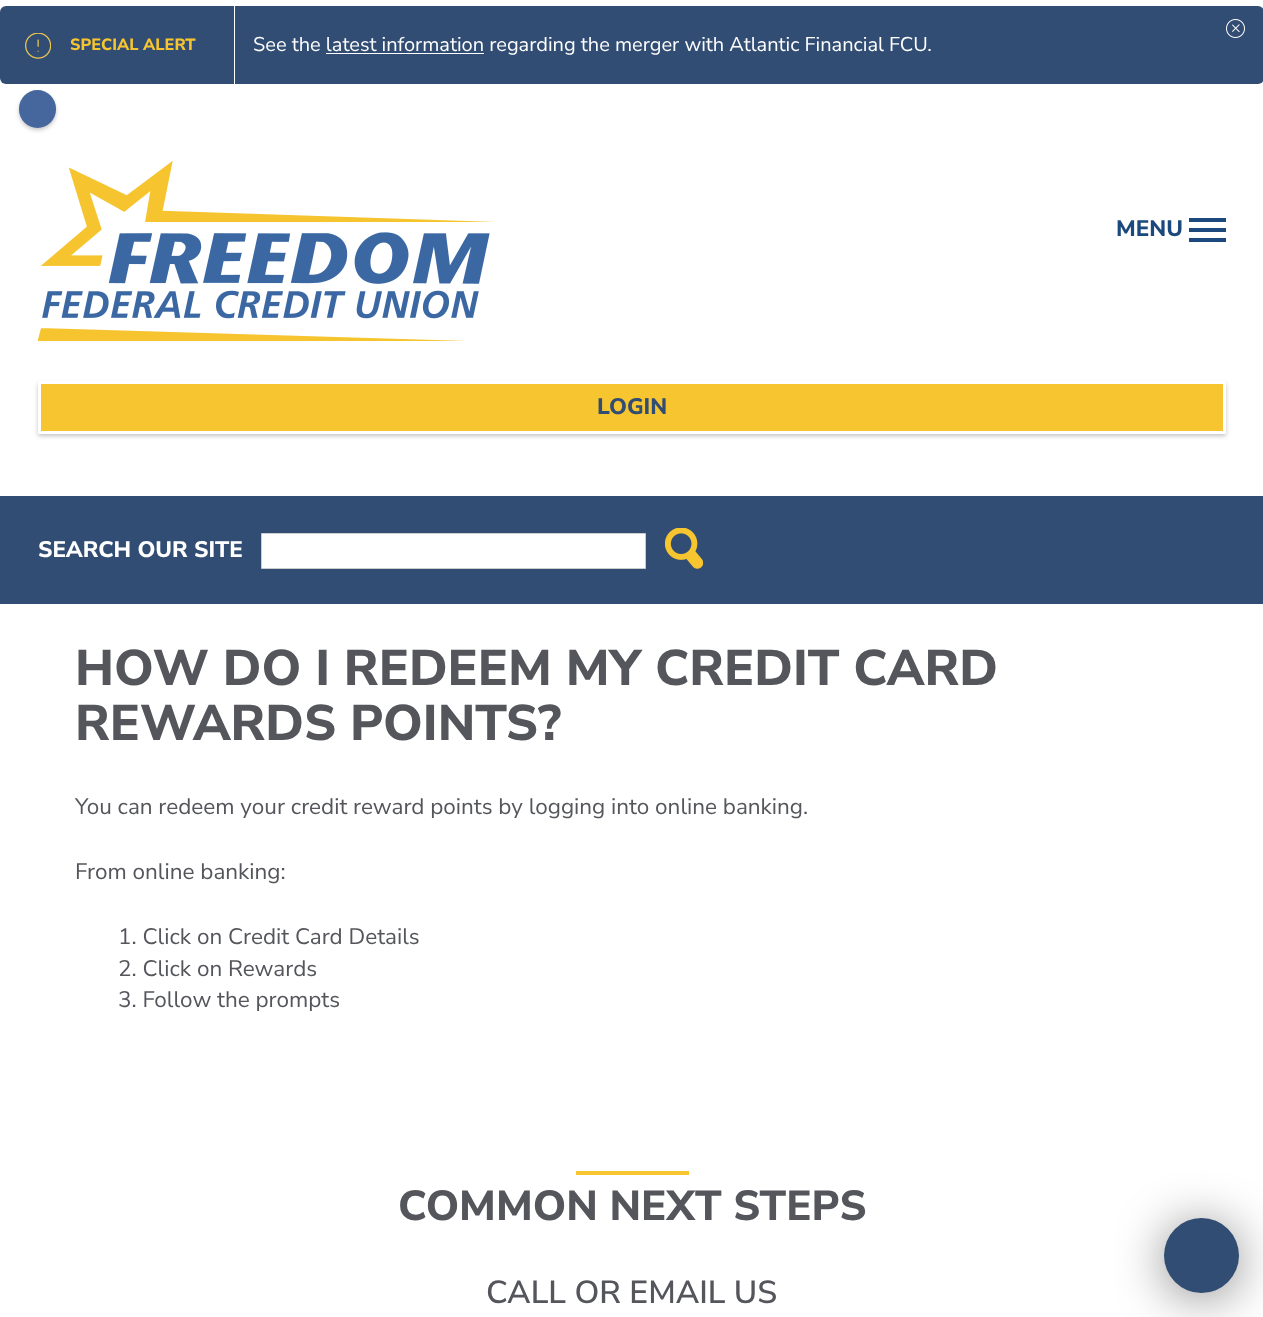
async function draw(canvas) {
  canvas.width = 1263;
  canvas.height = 1317;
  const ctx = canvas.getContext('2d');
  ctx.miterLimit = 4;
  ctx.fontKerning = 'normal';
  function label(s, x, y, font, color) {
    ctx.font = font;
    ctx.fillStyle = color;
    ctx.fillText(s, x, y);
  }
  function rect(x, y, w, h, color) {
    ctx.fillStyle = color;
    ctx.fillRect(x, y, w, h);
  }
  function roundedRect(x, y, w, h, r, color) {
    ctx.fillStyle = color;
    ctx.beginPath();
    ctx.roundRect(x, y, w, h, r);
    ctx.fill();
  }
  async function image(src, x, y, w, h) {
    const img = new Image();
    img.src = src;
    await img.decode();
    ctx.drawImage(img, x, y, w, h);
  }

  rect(0, 0, 1263, 1317, '#fff');
  roundedRect(0, 6, 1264, 78, 6, '#324d73');
  await image('assets/img1.png', 1226, 19, 19, 19);
  rect(234, 6, 1, 78, '#fff');
  await image('assets/img2.png', 25, 33, 26, 26);
  label('SPECIAL ALERT', 70, 50, '800 16.25px Nunito Sans', '#f6c530');
  label('See the latest information regarding the merger with Atlantic Financial FCU.', 253, 51, '20px Nunito Sans', '#fff');
  rect(326, 53, 158, 1, '#fff');
  ctx.fillStyle = '#3737374d';
  ctx.filter = 'blur(2px)';
  ctx.beginPath();
  ctx.roundRect(19, 93, 37, 37, 18.5);
  ctx.fill();
  ctx.filter = 'none';
  roundedRect(19, 90, 37, 38, 18.5, '#46679e');
  await image('assets/img3.png', 38, 161, 457, 180);
  label('MENU', 1116, 236, '800 22.5px Nunito Sans', '#1b497d');
  rect(1189, 228, 37, 4, '#1b497d');
  rect(1189, 218, 37, 4, '#1b497d');
  rect(1189, 238, 37, 4, '#1b497d');
  ctx.fillStyle = '#3737374d';
  ctx.filter = 'blur(2px)';
  ctx.beginPath();
  ctx.rect(38, 384, 1188, 52);
  ctx.fill();
  ctx.filter = 'none';
  ctx.fillStyle = '#f6c530';
  ctx.beginPath();
  ctx.rect(39.5, 382.5, 1185, 50);
  ctx.fill();
  ctx.strokeStyle = '#fff';
  ctx.lineWidth = 3;
  ctx.stroke();
  label('LOGIN', 597, 414, '800 22.5px Nunito Sans', '#324d73');
  rect(0, 496, 1263, 108, '#324d73');
  label('SEARCH OUR SITE', 38, 557, '800 22.5px Nunito Sans', '#fff');
  ctx.beginPath();
  ctx.rect(261.5, 533.5, 384, 35);
  ctx.fill();
  ctx.strokeStyle = '#ccc';
  ctx.lineWidth = 1;
  ctx.stroke();
  await image('assets/img4.png', 665, 528, 38, 41);
  label('HOW DO I REDEEM MY CREDIT CARD', 75, 685, '800 50px Nunito Sans', '#54565b');
  label('REWARDS POINTS?', 75, 740, '800 50px Nunito Sans', '#54565b');
  label('You can redeem your credit reward points by logging into online banking.', 75, 814, '22.5px Nunito Sans', '#54565b');
  label('From online banking:', 75, 879, '22.5px Nunito Sans', '#54565b');
  label('1. Click on Credit Card Details', 118, 944, '22.5px Nunito Sans', '#54565b');
  label('2. Click on Rewards', 118, 976, '22.5px Nunito Sans', '#54565b');
  label('3. Follow the prompts', 118, 1007, '22.5px Nunito Sans', '#54565b');
  rect(576, 1171, 113, 4, '#f6c530');
  label('COMMON NEXT STEPS', 398, 1220, '800 42px Nunito Sans', '#54565b');
  label('CALL OR EMAIL US', 486, 1303, '600 32px Nunito Sans', '#54565b');
  ctx.fillStyle = '#00000075';
  ctx.filter = 'blur(25px)';
  ctx.beginPath();
  ctx.roundRect(1164, 1223, 75, 75, 37.5);
  ctx.fill();
  ctx.filter = 'none';
  ctx.fillStyle = '#324d73';
  ctx.beginPath();
  ctx.arc(1201.5, 1255.5, 37.5, 0, 2 * Math.PI);
  ctx.fill();
}

draw(document.querySelector('canvas'));
